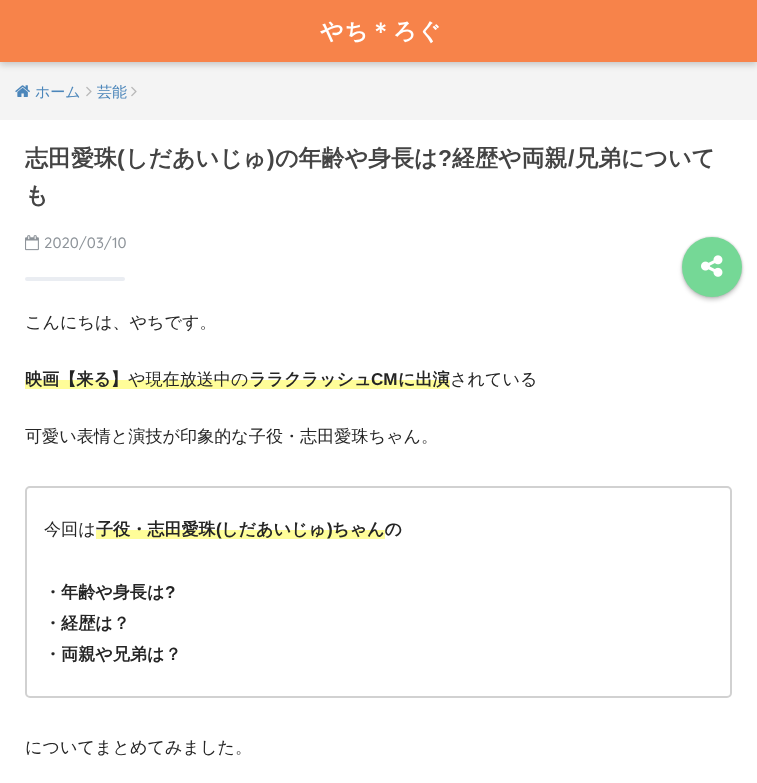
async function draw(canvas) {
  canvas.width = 757;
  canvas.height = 783;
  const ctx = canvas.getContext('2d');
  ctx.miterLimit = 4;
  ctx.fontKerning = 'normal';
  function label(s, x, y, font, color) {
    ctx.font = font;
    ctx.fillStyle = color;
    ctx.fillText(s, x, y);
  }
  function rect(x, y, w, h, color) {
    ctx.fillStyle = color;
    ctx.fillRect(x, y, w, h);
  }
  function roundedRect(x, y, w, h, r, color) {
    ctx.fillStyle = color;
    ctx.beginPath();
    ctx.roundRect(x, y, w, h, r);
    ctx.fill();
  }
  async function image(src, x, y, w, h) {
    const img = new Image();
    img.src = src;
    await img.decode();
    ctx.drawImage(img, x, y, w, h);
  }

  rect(0, 0, 757, 783, '#fff');
  rect(0, 62, 757, 58, '#f4f4f4');
  ctx.fillStyle = '#0000002e';
  ctx.filter = 'blur(3px)';
  ctx.beginPath();
  ctx.rect(0, 3, 757, 62);
  ctx.fill();
  ctx.filter = 'none';
  rect(0, 0, 757, 62, '#f7834a');
  ctx.letterSpacing = '1px';
  label('やち＊ろぐ', 320, 39, 'bold 23px WenQuanYi Zen Hei', '#fff');
  await image('assets/img1.png', 15, 85, 15, 12);
  ctx.letterSpacing = '0px';
  label('ホーム', 35, 97, '500 15px WenQuanYi Zen Hei', '#4c86ba');
  await image('assets/img2.png', 86, 86, 6, 11);
  label('芸能', 97, 97, '500 15px WenQuanYi Zen Hei', '#4c86ba');
  await image('assets/img2.png', 131, 86, 6, 11);
  label('志田愛珠', 25, 166, 'bold 23px WenQuanYi Zen Hei', '#444');
  label('(', 117, 166, 'bold 23px Liberation Sans', '#444');
  label('しだあいじゅ', 125, 166, 'bold 23px WenQuanYi Zen Hei', '#444');
  label(')', 267, 166, 'bold 23px Liberation Sans', '#444');
  label('の年齢や身長は', 275, 166, 'bold 23px WenQuanYi Zen Hei', '#444');
  label('?', 438, 166, 'bold 23px Liberation Sans', '#444');
  label('経歴や両親', 452, 166, 'bold 23px WenQuanYi Zen Hei', '#444');
  label('/', 568, 166, 'bold 23px Liberation Sans', '#444');
  label('兄弟について', 575, 166, 'bold 23px WenQuanYi Zen Hei', '#444');
  label('も', 25, 203, 'bold 23px WenQuanYi Zen Hei', '#444');
  await image('assets/img3.png', 25, 235, 14, 16);
  label('2020/03/10', 44, 248, '500 15px Quicksand', '#8e949a');
  roundedRect(25, 277, 100, 4, 2, '#eaedf2');
  ctx.fillStyle = '#00000033';
  ctx.filter = 'blur(1px)';
  ctx.beginPath();
  ctx.roundRect(682, 237, 60, 60, 30);
  ctx.fill();
  ctx.filter = 'none';
  ctx.filter = 'blur(2px)';
  ctx.beginPath();
  ctx.roundRect(682, 240, 60, 60, 30);
  ctx.fill();
  ctx.filter = 'none';
  ctx.fillStyle = '#75d896';
  ctx.beginPath();
  ctx.arc(712, 267, 30, 0, 2 * Math.PI);
  ctx.fill();
  await image('assets/img4.png', 701, 255, 22, 22);
  label('こんにちは、やちです。', 25, 328, '500 17.1px WenQuanYi Zen Hei', '#252525');
  rect(25, 380, 425, 9, '#fffd99');
  label('映画【来る】', 25, 385, 'bold 17.1px WenQuanYi Zen Hei', '#252525');
  label('や現在放送中の', 128, 385, '500 17.1px WenQuanYi Zen Hei', '#252525');
  label('ララクラッシュ', 249, 385, 'bold 17.1px WenQuanYi Zen Hei', '#252525');
  label('CM', 371, 385, 'bold 17.1px Liberation Sans', '#252525');
  label('に出演', 398, 385, 'bold 17.1px WenQuanYi Zen Hei', '#252525');
  label('されている', 450, 385, '500 17.1px WenQuanYi Zen Hei', '#252525');
  label('可愛い表情と演技が印象的な子役・志田愛珠ちゃん。', 25, 442, '500 17.1px WenQuanYi Zen Hei', '#252525');
  ctx.beginPath();
  ctx.roundRect(26, 487, 705, 210, 4);
  ctx.strokeStyle = '#d1d1d1';
  ctx.lineWidth = 2;
  ctx.stroke();
  label('今回は', 44, 535, '500 17.1px WenQuanYi Zen Hei', '#252525');
  rect(96, 530, 289, 9, '#fffd99');
  label('子役・志田愛珠', 96, 535, 'bold 17.1px WenQuanYi Zen Hei', '#252525');
  label('(', 216, 535, 'bold 17.1px Liberation Sans', '#252525');
  label('しだあいじゅ', 221, 535, 'bold 17.1px WenQuanYi Zen Hei', '#252525');
  label(')', 327, 535, 'bold 17.1px Liberation Sans', '#252525');
  label('ちゃんの', 332, 535, 'bold 17.1px WenQuanYi Zen Hei', '#252525');
  label('・年齢や身長は', 44, 598, 'bold 17.1px WenQuanYi Zen Hei', '#252525');
  label('?', 165, 598, 'bold 17.1px Liberation Sans', '#252525');
  label('・経歴は？', 44, 629, 'bold 17.1px WenQuanYi Zen Hei', '#252525');
  label('・両親や兄弟は？', 44, 660, 'bold 17.1px WenQuanYi Zen Hei', '#252525');
  label('についてまとめてみました。', 25, 753, '500 17.1px WenQuanYi Zen Hei', '#252525');
}

draw(document.querySelector('canvas'));
